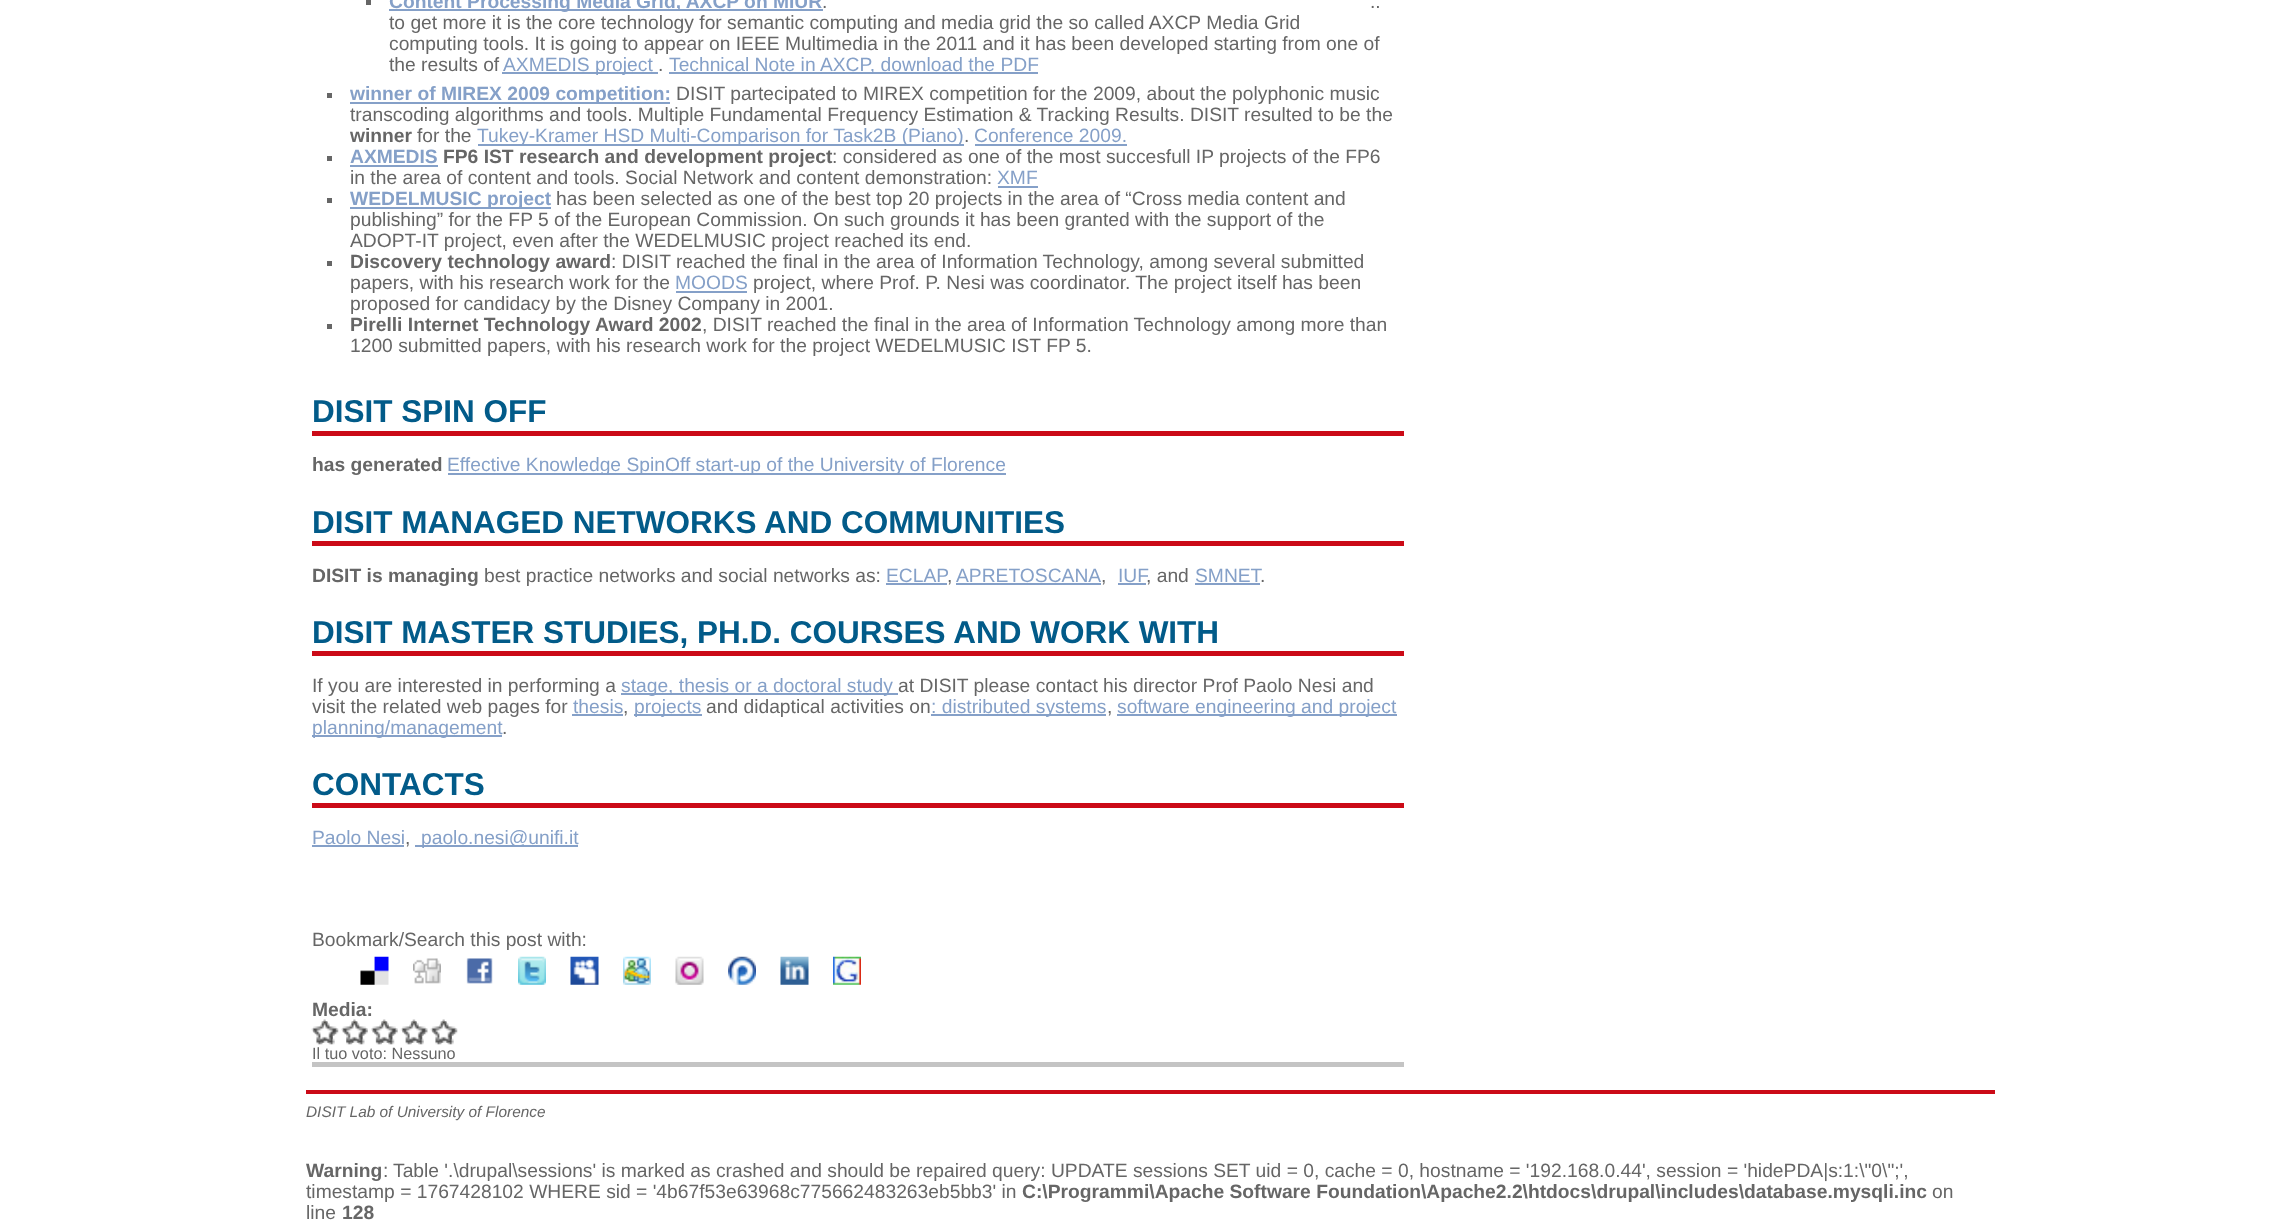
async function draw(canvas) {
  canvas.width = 2291;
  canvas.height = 1221;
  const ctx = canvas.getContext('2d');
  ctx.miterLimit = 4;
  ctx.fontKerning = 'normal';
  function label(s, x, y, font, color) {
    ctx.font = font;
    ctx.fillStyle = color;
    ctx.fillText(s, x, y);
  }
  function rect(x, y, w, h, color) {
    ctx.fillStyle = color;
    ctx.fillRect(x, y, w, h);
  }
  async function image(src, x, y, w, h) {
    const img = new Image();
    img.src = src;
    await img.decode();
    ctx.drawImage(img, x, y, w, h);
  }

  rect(0, 0, 2291, 1221, '#fff');
  rect(312, 1062, 1092, 5, '#c4c4c4');
  rect(366, 0, 5, 5, '#666');
  rect(389, 9, 434, 2, '#85a0c8');
  label('Content Processing Media Grid, AXCP on MIUR', 389, 8, 'bold 19.25px Liberation Sans', '#85a0c8');
  label('.', 822, 8, '19.25px Liberation Sans', '#666');
  label('..', 1370, 8, '19.25px Liberation Sans', '#666');
  label('to get more it is the core technology for semantic computing and media grid the so called AXCP Media Grid', 389, 29, '19.25px Liberation Sans', '#666');
  label('computing tools. It is going to appear on IEEE Multimedia in the 2011 and it has been developed starting from one of', 389, 50, '19.25px Liberation Sans', '#666');
  label('the results of', 389, 71, '19.25px Liberation Sans', '#666');
  rect(502, 72, 156, 2, '#85a0c8');
  label('AXMEDIS project', 503, 71, '19.25px Liberation Sans', '#85a0c8');
  label('.', 658, 71, '19.25px Liberation Sans', '#666');
  rect(669, 72, 369, 2, '#85a0c8');
  label('Technical Note in AXCP, download the PDF', 669, 71, '19.25px Liberation Sans', '#85a0c8');
  rect(327, 93, 5, 5, '#666');
  rect(350, 102, 320, 2, '#85a0c8');
  label('winner of MIREX 2009 competition:', 350, 100, 'bold 19.25px Liberation Sans', '#85a0c8');
  label('DISIT partecipated to MIREX competition for the 2009, about the polyphonic music', 676, 100, '19.25px Liberation Sans', '#666');
  label('transcoding algorithms and tools. Multiple Fundamental Frequency Estimation & Tracking Results. DISIT resulted to be the', 350, 121, '19.25px Liberation Sans', '#666');
  label('winner', 350, 142, 'bold 19.25px Liberation Sans', '#666');
  label('for the', 417, 142, '19.25px Liberation Sans', '#666');
  rect(478, 144, 486, 2, '#85a0c8');
  label('Tukey-Kramer HSD Multi-Comparison for Task2B (Piano)', 477, 142, '19.25px Liberation Sans', '#85a0c8');
  label('.', 964, 142, '19.25px Liberation Sans', '#666');
  label('Conference 2009.', 974, 142, '19.25px Liberation Sans', '#85a0c8');
  rect(975, 144, 152, 2, '#85a0c8');
  rect(327, 156, 5, 5, '#666');
  label('AXMEDIS', 350, 163, 'bold 19.25px Liberation Sans', '#85a0c8');
  rect(350, 165, 88, 2, '#85a0c8');
  label('FP6 IST research and development project', 443, 163, 'bold 19.25px Liberation Sans', '#666');
  label(': considered as one of the most succesfull IP projects of the FP6', 832, 163, '19.25px Liberation Sans', '#666');
  label('in the area of content and tools. Social Network and content demonstration:', 350, 184, '19.25px Liberation Sans', '#666');
  label('XMF', 997, 184, '19.25px Liberation Sans', '#85a0c8');
  rect(998, 186, 40, 2, '#85a0c8');
  rect(327, 198, 5, 5, '#666');
  rect(350, 207, 201, 2, '#85a0c8');
  label('WEDELMUSIC project', 350, 205, 'bold 19.25px Liberation Sans', '#85a0c8');
  label('has been selected as one of the best top 20 projects in the area of “Cross media content and', 556, 205, '19.25px Liberation Sans', '#666');
  label('publishing” for the FP 5 of the European Commission. On such grounds it has been granted with the support of the', 350, 226, '19.25px Liberation Sans', '#666');
  label('ADOPT-IT project, even after the WEDELMUSIC project reached its end.', 350, 247, '19.25px Liberation Sans', '#666');
  rect(327, 261, 5, 5, '#666');
  label('Discovery technology award', 350, 268, 'bold 19.25px Liberation Sans', '#666');
  label(': DISIT reached the final in the area of Information Technology, among several submitted', 611, 268, '19.25px Liberation Sans', '#666');
  label('papers, with his research work for the', 350, 289, '19.25px Liberation Sans', '#666');
  label('MOODS', 675, 289, '19.25px Liberation Sans', '#85a0c8');
  rect(676, 291, 71, 2, '#85a0c8');
  label('project, where Prof. P. Nesi was coordinator. The project itself has been', 753, 289, '19.25px Liberation Sans', '#666');
  label('proposed for candidacy by the Disney Company in 2001.', 350, 310, '19.25px Liberation Sans', '#666');
  rect(327, 324, 5, 5, '#666');
  label('Pirelli Internet Technology Award 2002', 350, 331, 'bold 19.25px Liberation Sans', '#666');
  label(', DISIT reached the final in the area of Information Technology among more than', 702, 331, '19.25px Liberation Sans', '#666');
  label('1200 submitted papers, with his research work for the project WEDELMUSIC IST FP 5.', 350, 352, '19.25px Liberation Sans', '#666');
  rect(312, 431, 1092, 5, '#cb0a17');
  label('DISIT SPIN OFF', 312, 422, 'bold 31.5px Liberation Sans', '#025b89');
  label('has generated', 312, 471, 'bold 19.25px Liberation Sans', '#666');
  rect(448, 473, 558, 2, '#85a0c8');
  label('Effective Knowledge SpinOff start-up of the University of Florence', 447, 471, '19.25px Liberation Sans', '#85a0c8');
  rect(312, 541, 1092, 5, '#cb0a17');
  label('DISIT MANAGED NETWORKS AND COMMUNITIES', 312, 533, 'bold 31.5px Liberation Sans', '#025b89');
  label('DISIT is managing', 312, 582, 'bold 19.25px Liberation Sans', '#666');
  label('best practice networks and social networks as:', 484, 582, '19.25px Liberation Sans', '#666');
  label('ECLAP', 886, 582, '19.25px Liberation Sans', '#85a0c8');
  rect(886, 583, 61, 2, '#85a0c8');
  label(',', 947, 582, '19.25px Liberation Sans', '#666');
  label('APRETOSCANA', 956, 582, '19.25px Liberation Sans', '#85a0c8');
  rect(956, 583, 145, 2, '#85a0c8');
  label(',', 1101, 582, '19.25px Liberation Sans', '#666');
  label('IUF', 1118, 582, '19.25px Liberation Sans', '#85a0c8');
  rect(1118, 583, 28, 2, '#85a0c8');
  label(', and', 1146, 582, '19.25px Liberation Sans', '#666');
  label('SMNET', 1195, 582, '19.25px Liberation Sans', '#85a0c8');
  rect(1195, 583, 65, 2, '#85a0c8');
  label('.', 1260, 582, '19.25px Liberation Sans', '#666');
  rect(312, 651, 1092, 5, '#cb0a17');
  label('DISIT MASTER STUDIES, PH.D. COURSES AND WORK WITH', 312, 643, 'bold 31.5px Liberation Sans', '#025b89');
  label('If you are interested in performing a', 312, 692, '19.25px Liberation Sans', '#666');
  rect(621, 693, 277, 2, '#85a0c8');
  label('stage, thesis or a doctoral study', 621, 692, '19.25px Liberation Sans', '#85a0c8');
  label('at DISIT please contact his director Prof Paolo Nesi and', 898, 692, '19.25px Liberation Sans', '#666');
  label('visit the related web pages for', 312, 713, '19.25px Liberation Sans', '#666');
  label('thesis', 573, 713, '19.25px Liberation Sans', '#85a0c8');
  rect(572, 714, 51, 2, '#85a0c8');
  label(',', 623, 713, '19.25px Liberation Sans', '#666');
  rect(634, 714, 68, 2, '#85a0c8');
  label('projects', 634, 713, '19.25px Liberation Sans', '#85a0c8');
  label('and didaptical activities on', 706, 713, '19.25px Liberation Sans', '#666');
  rect(931, 714, 175, 2, '#85a0c8');
  label(': distributed systems', 931, 713, '19.25px Liberation Sans', '#85a0c8');
  label(',', 1107, 713, '19.25px Liberation Sans', '#666');
  rect(1117, 714, 280, 2, '#85a0c8');
  label('software engineering and project', 1117, 713, '19.25px Liberation Sans', '#85a0c8');
  rect(312, 735, 190, 2, '#85a0c8');
  label('planning/management', 312, 734, '19.25px Liberation Sans', '#85a0c8');
  label('.', 502, 734, '19.25px Liberation Sans', '#666');
  rect(312, 803, 1092, 5, '#cb0a17');
  label('CONTACTS', 312, 795, 'bold 31.5px Liberation Sans', '#025b89');
  label('Paolo Nesi', 312, 844, '19.25px Liberation Sans', '#85a0c8');
  rect(312, 845, 92, 2, '#85a0c8');
  label(',', 405, 844, '19.25px Liberation Sans', '#666');
  rect(415, 845, 163, 2, '#85a0c8');
  label('paolo.nesi@unifi.it', 421, 844, '19.25px Liberation Sans', '#85a0c8');
  label('Bookmark/Search this post with:', 312, 946, '19.25px Liberation Sans', '#666');
  await image('assets/img1.png', 360, 956, 29, 29);
  await image('assets/img2.png', 413, 958, 28, 26);
  await image('assets/img3.png', 466, 958, 27, 26);
  await image('assets/img4.png', 518, 956, 28, 29);
  await image('assets/img5.png', 570, 956, 29, 29);
  await image('assets/img6.png', 623, 956, 28, 29);
  await image('assets/img7.png', 675, 956, 29, 29);
  await image('assets/img8.png', 728, 956, 28, 29);
  await image('assets/img9.png', 780, 956, 29, 29);
  await image('assets/img10.png', 833, 956, 28, 29);
  label('Media:', 312, 1016, 'bold 19.25px Liberation Sans', '#666');
  await image('assets/img11.png', 311, 1019, 28, 26);
  await image('assets/img12.png', 312, 1019, 27, 26);
  await image('assets/img13.png', 341, 1019, 27, 26);
  await image('assets/img14.png', 342, 1019, 26, 26);
  await image('assets/img15.png', 371, 1019, 27, 26);
  await image('assets/img16.png', 371, 1019, 27, 26);
  await image('assets/img17.png', 400, 1019, 28, 26);
  await image('assets/img18.png', 401, 1019, 27, 26);
  await image('assets/img19.png', 430, 1019, 28, 26);
  await image('assets/img20.png', 431, 1019, 27, 26);
  label('Il tuo voto: Nessuno', 312, 1059, '16.25px Liberation Sans', '#666');
  rect(306, 1090, 1689, 4, '#cb0a17');
  label('DISIT Lab of University of Florence', 306, 1117, 'italic 15.4px Liberation Sans', '#666');
  label('Warning', 306, 1177, 'bold 19.25px Liberation Sans', '#666');
  label(':', 383, 1177, '19.25px Liberation Sans', '#666');
  label('Table \'.\\drupal\\sessions\' is marked as crashed and should be repaired query: UPDATE sessions SET uid = 0, cache = 0, hostname = \'192.168.0.44\', session = \'hidePDA|s:1:\\"0\\";\',', 393, 1177, '19.25px Liberation Sans', '#666');
  label('timestamp = 1767428102 WHERE sid = \'4b67f53e63968c775662483263eb5bb3\' in', 306, 1198, '19.25px Liberation Sans', '#666');
  label('C:\\Programmi\\Apache Software Foundation\\Apache2.2\\htdocs\\drupal\\includes\\database.mysqli.inc', 1022, 1198, 'bold 19.25px Liberation Sans', '#666');
  label('on', 1932, 1198, '19.25px Liberation Sans', '#666');
  label('line', 306, 1219, '19.25px Liberation Sans', '#666');
  label('128', 342, 1219, 'bold 19.25px Liberation Sans', '#666');
}

draw(document.querySelector('canvas'));
